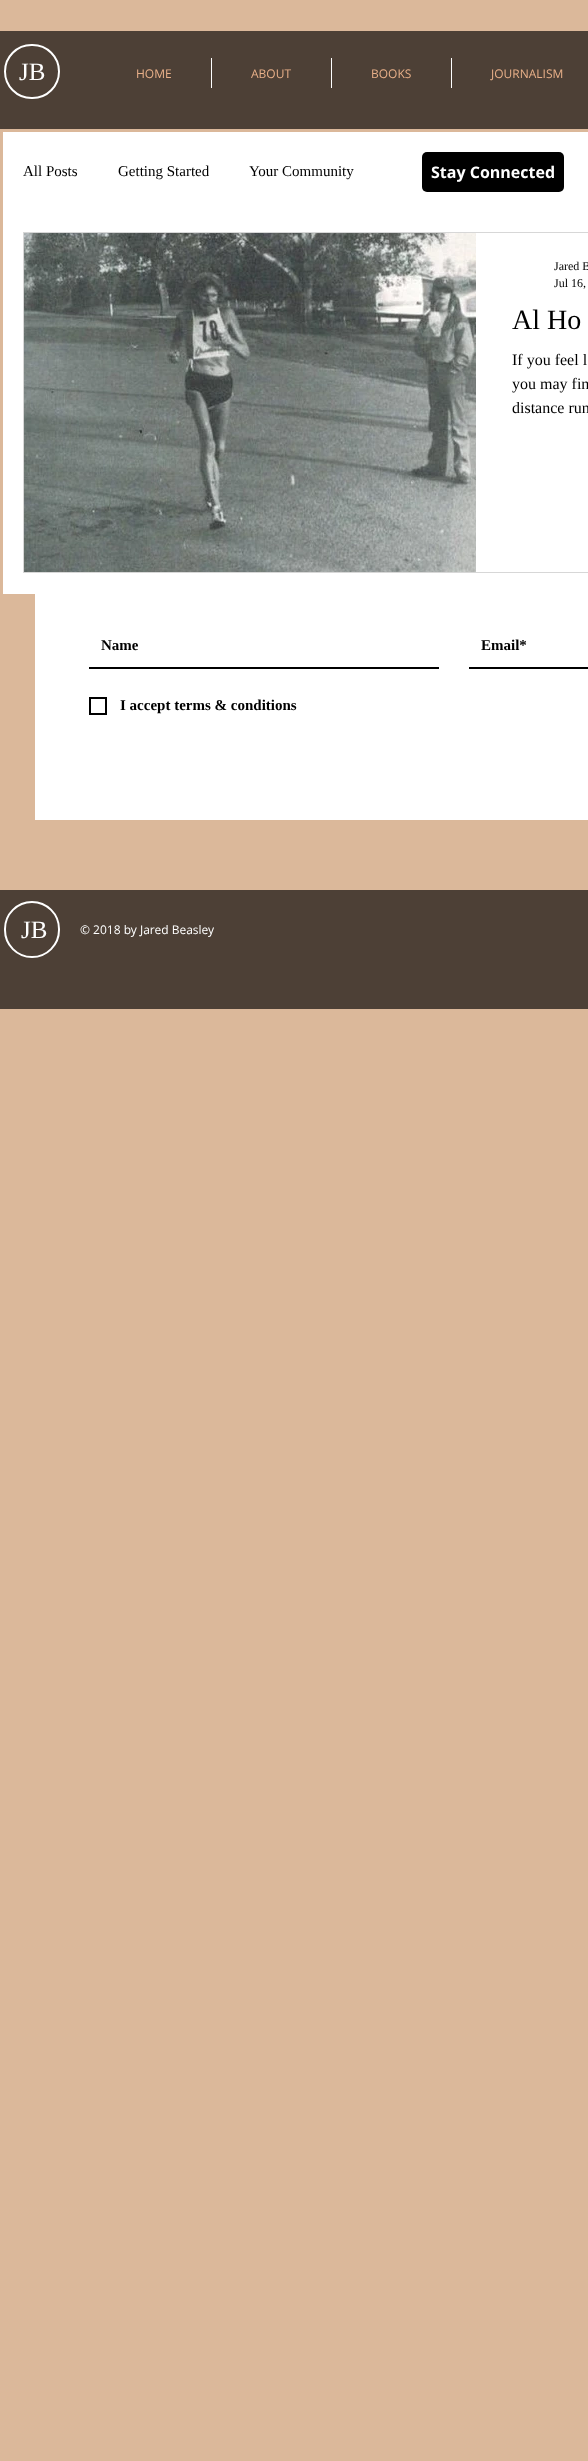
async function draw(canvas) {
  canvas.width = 588;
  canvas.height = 2461;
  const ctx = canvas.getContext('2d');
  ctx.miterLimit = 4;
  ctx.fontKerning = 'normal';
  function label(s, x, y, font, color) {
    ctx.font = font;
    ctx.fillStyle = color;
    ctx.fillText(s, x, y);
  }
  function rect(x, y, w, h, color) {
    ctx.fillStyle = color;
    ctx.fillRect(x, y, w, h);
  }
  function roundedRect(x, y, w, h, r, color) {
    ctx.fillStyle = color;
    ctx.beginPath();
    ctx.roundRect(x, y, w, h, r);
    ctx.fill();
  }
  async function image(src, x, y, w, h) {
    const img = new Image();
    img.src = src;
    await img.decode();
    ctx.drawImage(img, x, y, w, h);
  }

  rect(0, 0, 588, 2461, '#dbb89a');
  rect(0, 31, 588, 98, '#4d4036');
  ctx.beginPath();
  ctx.roundRect(5, 45, 54, 53, 26.5);
  ctx.strokeStyle = '#fff';
  ctx.lineWidth = 2;
  ctx.stroke();
  label('JB', 19, 80, '25px Liberation Serif', '#fff');
  label('HOME', 136, 78, '12px Open Sans', '#e9b089');
  rect(211, 58, 1, 30, '#fff');
  label('ABOUT', 251, 78, '12px Open Sans', '#e9b089');
  rect(331, 58, 1, 30, '#fff');
  label('BOOKS', 371, 78, '12px Open Sans', '#e9b089');
  rect(451, 58, 1, 30, '#fff');
  label('JOURNALISM', 491, 78, '12px Open Sans', '#e9b089');
  rect(3, 132, 585, 462, '#fff');
  label('All Posts', 23, 176, '15px Liberation Serif', '#000');
  label('Getting Started', 118, 176, '15px Liberation Serif', '#000');
  label('Your Community', 249, 176, '15px Liberation Serif', '#000');
  ctx.strokeStyle = '#d7d7d7';
  ctx.lineWidth = 1;
  ctx.strokeRect(23.5, 232.5, 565, 340);
  await image('assets/img1.png', 24, 233, 452, 339);
  label('Jared B', 554, 270, '12px Liberation Serif', '#000');
  label('Jul 16,', 554, 287, '12px Liberation Serif', '#000');
  label('Al Ho', 512, 329, '28px Liberation Serif', '#000');
  label('If you feel l', 512, 365, '16px Liberation Serif', '#000');
  label('you may fin', 512, 389, '16px Liberation Serif', '#000');
  label('distance run', 512, 413, '16px Liberation Serif', '#000');
  roundedRect(422, 152, 142, 40, 5, '#000');
  label('Stay Connected', 431, 178, 'bold 16px Open Sans', '#fff');
  rect(35, 594, 553, 226, '#fff');
  rect(89, 667, 350, 2, '#000');
  label('Name', 101, 650, 'bold 15px Liberation Serif', '#000');
  rect(469, 667, 119, 2, '#000');
  label('Email*', 481, 650, 'bold 15px Liberation Serif', '#000');
  ctx.strokeStyle = '#000';
  ctx.lineWidth = 2;
  ctx.strokeRect(90, 698, 16, 16);
  label('I accept terms & conditions', 120, 710, 'bold 15px Liberation Serif', '#000');
  rect(0, 890, 588, 119, '#4d4036');
  ctx.beginPath();
  ctx.roundRect(5, 902, 54, 55, 27);
  ctx.strokeStyle = '#fff';
  ctx.stroke();
  label('JB', 21, 938, '25px Liberation Serif', '#fff');
  label('© 2018 by Jared Beasley', 80, 934, '12px Open Sans', '#fff');
}

draw(document.querySelector('canvas'));
